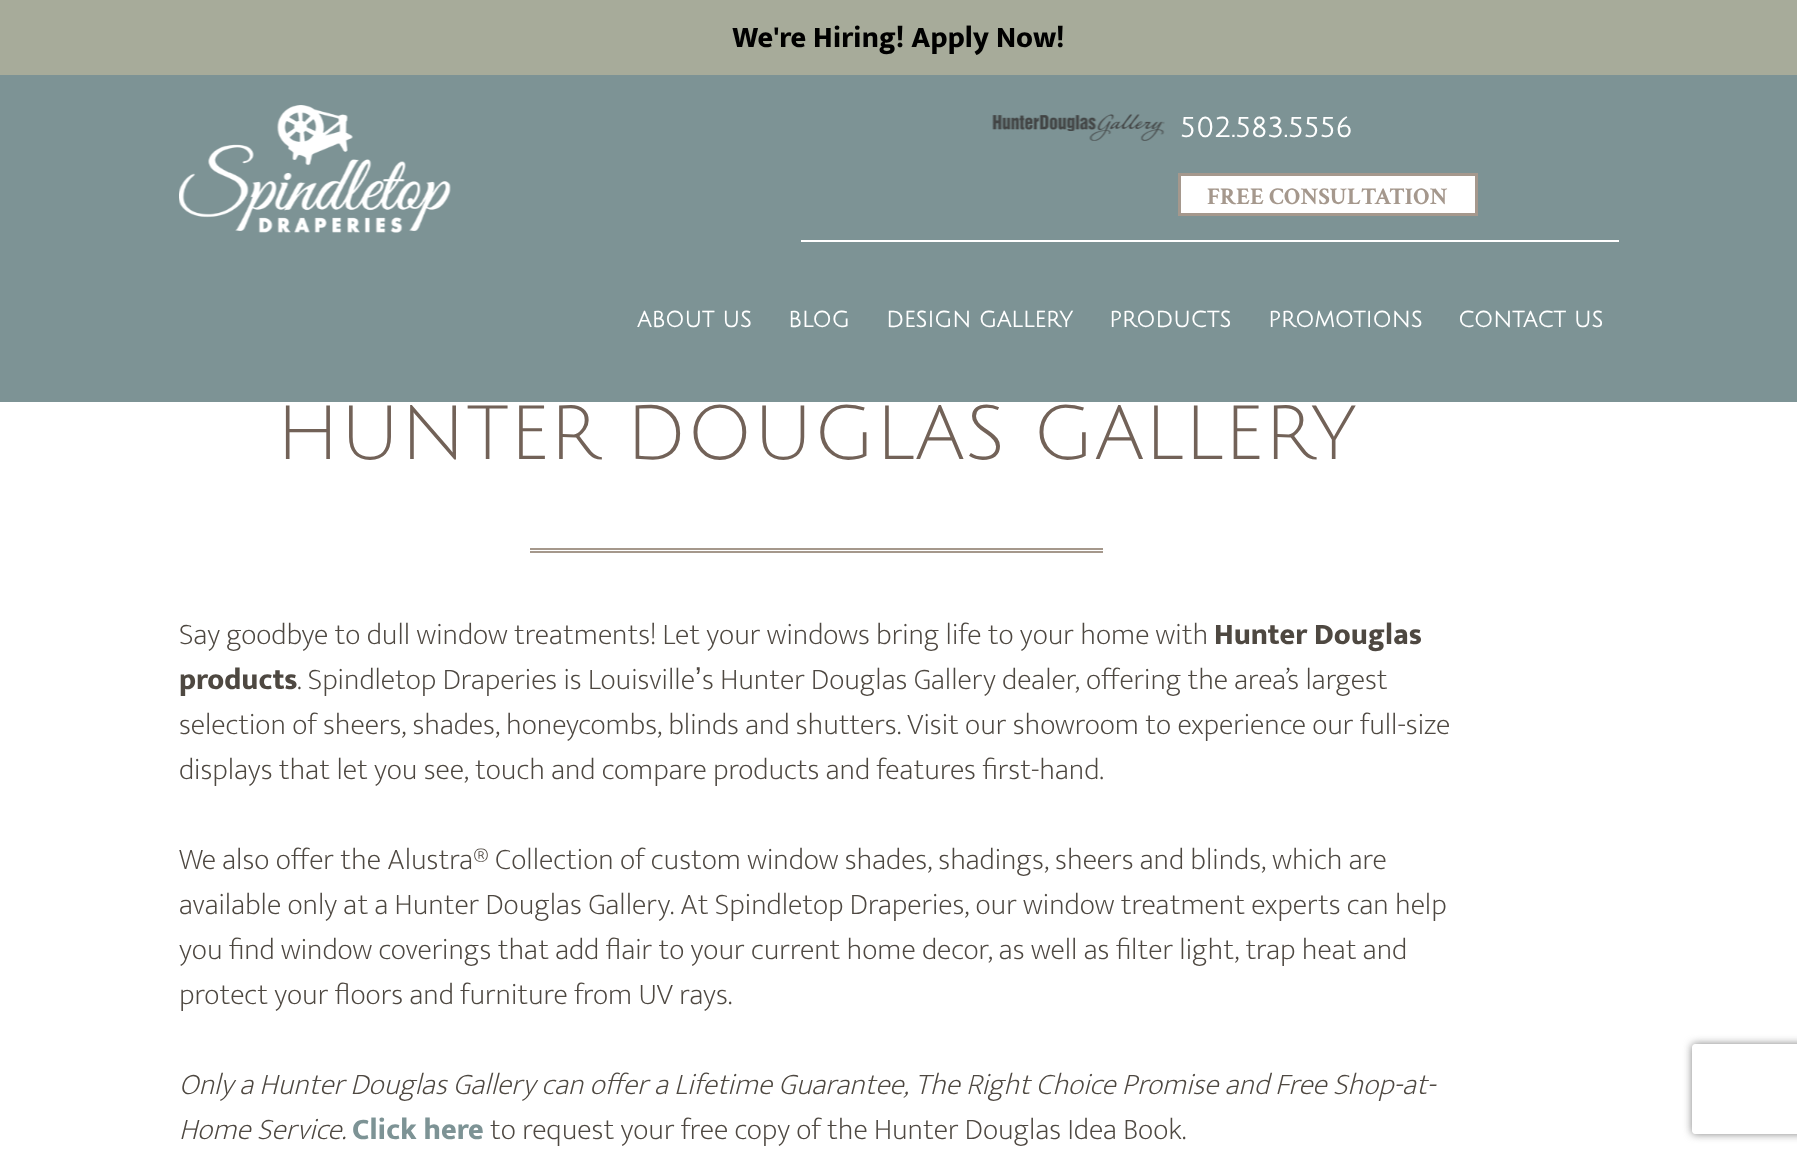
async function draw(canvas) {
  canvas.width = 1797;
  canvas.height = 1155;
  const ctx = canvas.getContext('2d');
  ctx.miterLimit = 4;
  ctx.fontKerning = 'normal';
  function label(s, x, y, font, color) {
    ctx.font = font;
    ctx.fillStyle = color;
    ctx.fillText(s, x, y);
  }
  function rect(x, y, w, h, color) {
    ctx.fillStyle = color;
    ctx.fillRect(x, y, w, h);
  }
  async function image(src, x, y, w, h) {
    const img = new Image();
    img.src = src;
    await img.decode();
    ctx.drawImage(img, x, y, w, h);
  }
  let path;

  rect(0, 0, 1797, 1155, '#fff');
  rect(0, 0, 1797, 75, '#a7ab9a');
  label('We\'re Hiring! Apply Now!', 732, 47, '800 30px Ek Mukta', '#000');
  rect(0, 75, 1797, 327, '#7d9395');
  await image('assets/img1.png', 179, 105, 272, 128);
  rect(801, 240, 818, 2, '#fff');
  await image('assets/img2.png', 992, 114, 173, 27);
  ctx.letterSpacing = '0.75px';
  label('502.583.5556', 1180, 137, 'bold 27px Julius Sans One', '#fff');
  ctx.beginPath();
  ctx.rect(1179.5, 174.5, 297, 40);
  ctx.fill();
  ctx.strokeStyle = '#a5988d';
  ctx.lineWidth = 3;
  ctx.stroke();
  ctx.letterSpacing = '0px';
  label('FREE CONSULTATION', 1207, 204, 'bold 24px Crimson Text', '#a5988d');
  label('ABOUT US', 637, 327, 'bold 21.75px Julius Sans One', '#fff');
  label('BLOG', 788, 327, 'bold 21.75px Julius Sans One', '#fff');
  label('DESIGN GALLERY', 886, 327, 'bold 21.75px Julius Sans One', '#fff');
  label('PRODUCTS', 1109, 327, 'bold 21.75px Julius Sans One', '#fff');
  label('PROMOTIONS', 1268, 327, 'bold 21.75px Julius Sans One', '#fff');
  label('CONTACT US', 1458, 327, 'bold 21.75px Julius Sans One', '#fff');
  label('HUNTER DOUGLAS GALLERY', 276, 459, '75px Julius Sans One', '#726258');
  rect(530, 548, 573, 2, '#a5988c');
  rect(530, 551, 573, 2, '#a5988c');
  label('Say goodbye to dull window treatments! Let your windows bring life to your home with', 179, 644, '200 30px Ek Mukta', '#4e4841');
  label('Hunter Douglas', 1214, 644, '800 30px Ek Mukta', '#4e4841');
  label('products', 179, 689, '800 30px Ek Mukta', '#4e4841');
  label('. Spindletop Draperies is Louisville', 297, 689, '200 30px Ek Mukta', '#4e4841');
  label('ʼ', 695, 689, '30px Liberation Sans', '#4e4841');
  label('s Hunter Douglas Gallery dealer, offering the area’s largest', 702, 689, '200 30px Ek Mukta', '#4e4841');
  label('selection of sheers, shades, honeycombs, blinds and shutters. Visit our showroom to experience our full-size', 179, 734, '200 30px Ek Mukta', '#4e4841');
  label('displays that let you see, touch and compare products and features first-hand.', 179, 779, '200 30px Ek Mukta', '#4e4841');
  label('We also offer the Alustra® Collection of custom window shades, shadings, sheers and blinds, which are', 179, 869, '200 30px Ek Mukta', '#4e4841');
  label('available only at a Hunter Douglas Gallery. At Spindletop Draperies, our window treatment experts can help', 179, 914, '200 30px Ek Mukta', '#4e4841');
  label('you find window coverings that add flair to your current home decor, as well as filter light, trap heat and', 179, 959, '200 30px Ek Mukta', '#4e4841');
  label('protect your floors and furniture from UV rays.', 179, 1004, '200 30px Ek Mukta', '#4e4841');
  label('Only a Hunter Douglas Gallery can offer a Lifetime Guarantee, The Right Choice Promise and Free Shop-at-', 179, 1094, 'italic 200 30px Ek Mukta', '#4e4841');
  label('Home Service.', 179, 1139, 'italic 200 30px Ek Mukta', '#4e4841');
  label('Click here', 352, 1139, '800 30px Ek Mukta', '#7d9395');
  label('to request your free copy of the Hunter Douglas Idea Book.', 490, 1139, '200 30px Ek Mukta', '#4e4841');
  ctx.save();
  path = new Path2D('M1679 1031H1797V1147H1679ZM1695 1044H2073C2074.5 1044 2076 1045.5 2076 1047V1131C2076 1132.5 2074.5 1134 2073 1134H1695C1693.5 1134 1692 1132.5 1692 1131V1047C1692 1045.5 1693.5 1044 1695 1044Z');
  ctx.clip(path, 'evenodd');
  ctx.fillStyle = '#808080';
  ctx.filter = 'blur(4px)';
  ctx.beginPath();
  ctx.roundRect(1692, 1044, 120, 90, 3);
  ctx.fill();
  ctx.filter = 'none';
  ctx.restore();
}

draw(document.querySelector('canvas'));
